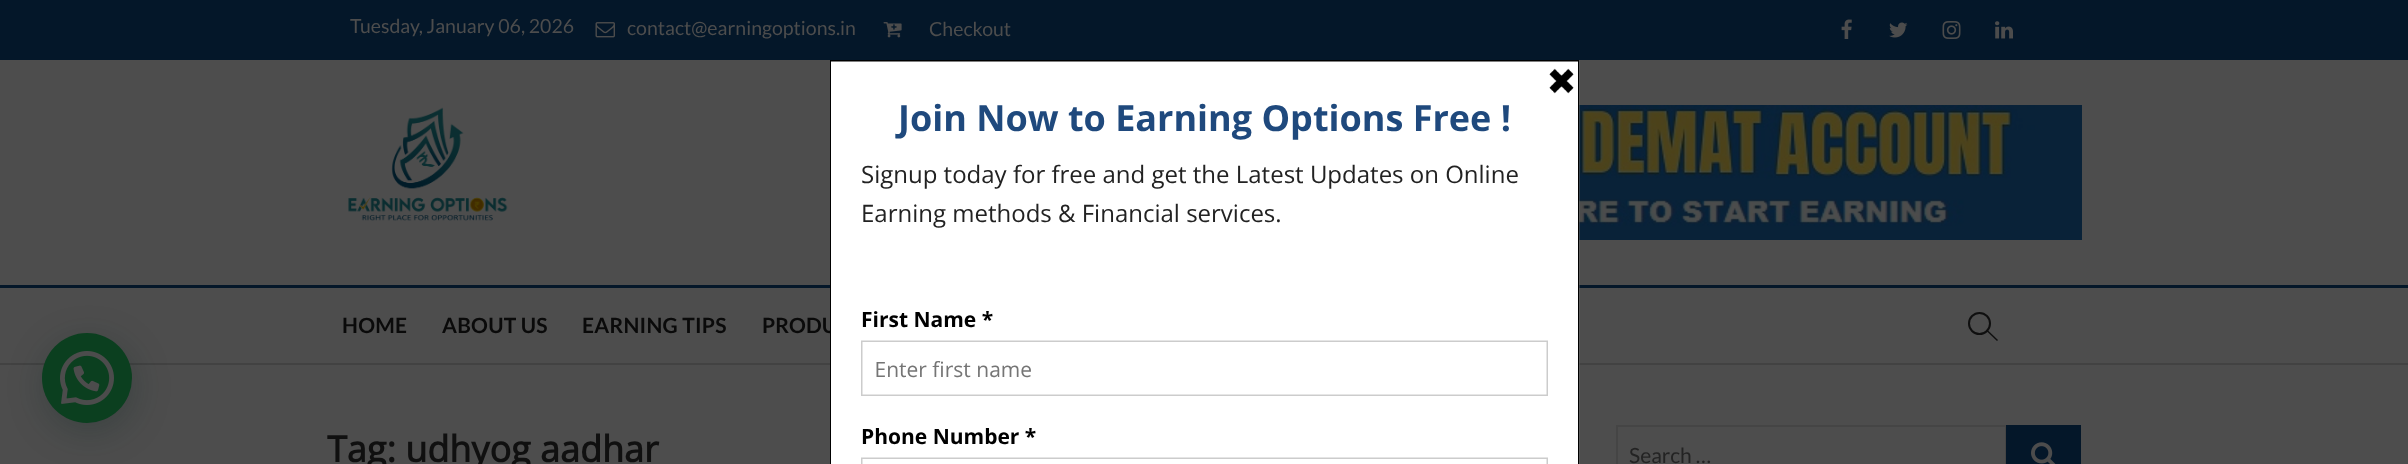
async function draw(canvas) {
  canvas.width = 2408;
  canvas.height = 464;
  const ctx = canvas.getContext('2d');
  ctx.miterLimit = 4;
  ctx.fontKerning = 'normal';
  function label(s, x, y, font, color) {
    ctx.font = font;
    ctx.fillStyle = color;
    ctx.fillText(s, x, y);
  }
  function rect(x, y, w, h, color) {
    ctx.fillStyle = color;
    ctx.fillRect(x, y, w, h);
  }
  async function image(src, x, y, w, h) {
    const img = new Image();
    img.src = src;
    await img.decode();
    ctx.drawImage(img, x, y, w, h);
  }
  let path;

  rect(0, 0, 2408, 464, '#4d4d4d');
  rect(0, 0, 2408, 60, '#041729');
  label('Tuesday, January 06, 2026', 350, 33, '19.5px Lato', '#4d4d4d');
  await image('assets/img1.png', 595, 22, 20, 16);
  label('contact@earningoptions.in', 627, 35, '19.5px Lato', '#4d4d4d');
  await image('assets/img2.png', 883, 22, 19, 16);
  label('Checkout', 929, 36, '19.5px Lato', '#4d4d4d');
  await image('assets/img3.png', 1841, 19, 11, 20);
  await image('assets/img4.png', 1889, 22, 19, 16);
  await image('assets/img5.png', 1942, 21, 19, 18);
  await image('assets/img6.png', 1995, 21, 18, 18);
  await image('assets/img7.png', 348, 107, 160, 114);
  await image('assets/img8.png', 1579, 105, 503, 135);
  rect(0, 285, 2408, 3, '#041729');
  rect(0, 363, 2408, 2, '#424242');
  ctx.letterSpacing = '0.25px';
  label('HOME', 342, 333, 'bold 21px Lato', '#0a0a0a');
  label('ABOUT US', 442, 333, 'bold 21px Lato', '#0a0a0a');
  label('EARNING TIPS', 582, 333, 'bold 21px Lato', '#0a0a0a');
  label('PRODU', 762, 333, 'bold 21px Lato', '#0a0a0a');
  ctx.beginPath();
  ctx.arc(1979.5, 323.5, 10.5, 0, 2 * Math.PI);
  ctx.strokeStyle = '#0f0f0f';
  ctx.lineWidth = 2;
  ctx.stroke();
  ctx.fillStyle = '#0f0f0f';
  path = new Path2D('M1986 330.5L1987 329.5L1998 340L1997 341Z');
  ctx.fill(path);
  ctx.letterSpacing = '0px';
  label('Tag: udhyog aadhar', 327, 462, 'bold 36px Open Sans', '#101010');
  ctx.strokeStyle = '#454545';
  ctx.strokeRect(1617, 426, 389, 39);
  label('Search …', 1629, 463, '21px Lato', '#232323');
  rect(2006, 425, 75, 39, '#041729');
  await image('assets/img9.png', 2031, 442, 25, 22);
  ctx.fillStyle = '#021c193d';
  ctx.filter = 'blur(18px)';
  ctx.beginPath();
  ctx.roundRect(44, 342, 90, 90, 45);
  ctx.fill();
  ctx.filter = 'none';
  ctx.fillStyle = '#0b3f1f';
  ctx.beginPath();
  ctx.arc(87, 378, 45, 0, 2 * Math.PI);
  ctx.fill();
  await image('assets/img10.png', 60, 351, 54, 54);
  await image('assets/img11.png', 830, 60, 750, 404);
}

draw(document.querySelector('canvas'));
